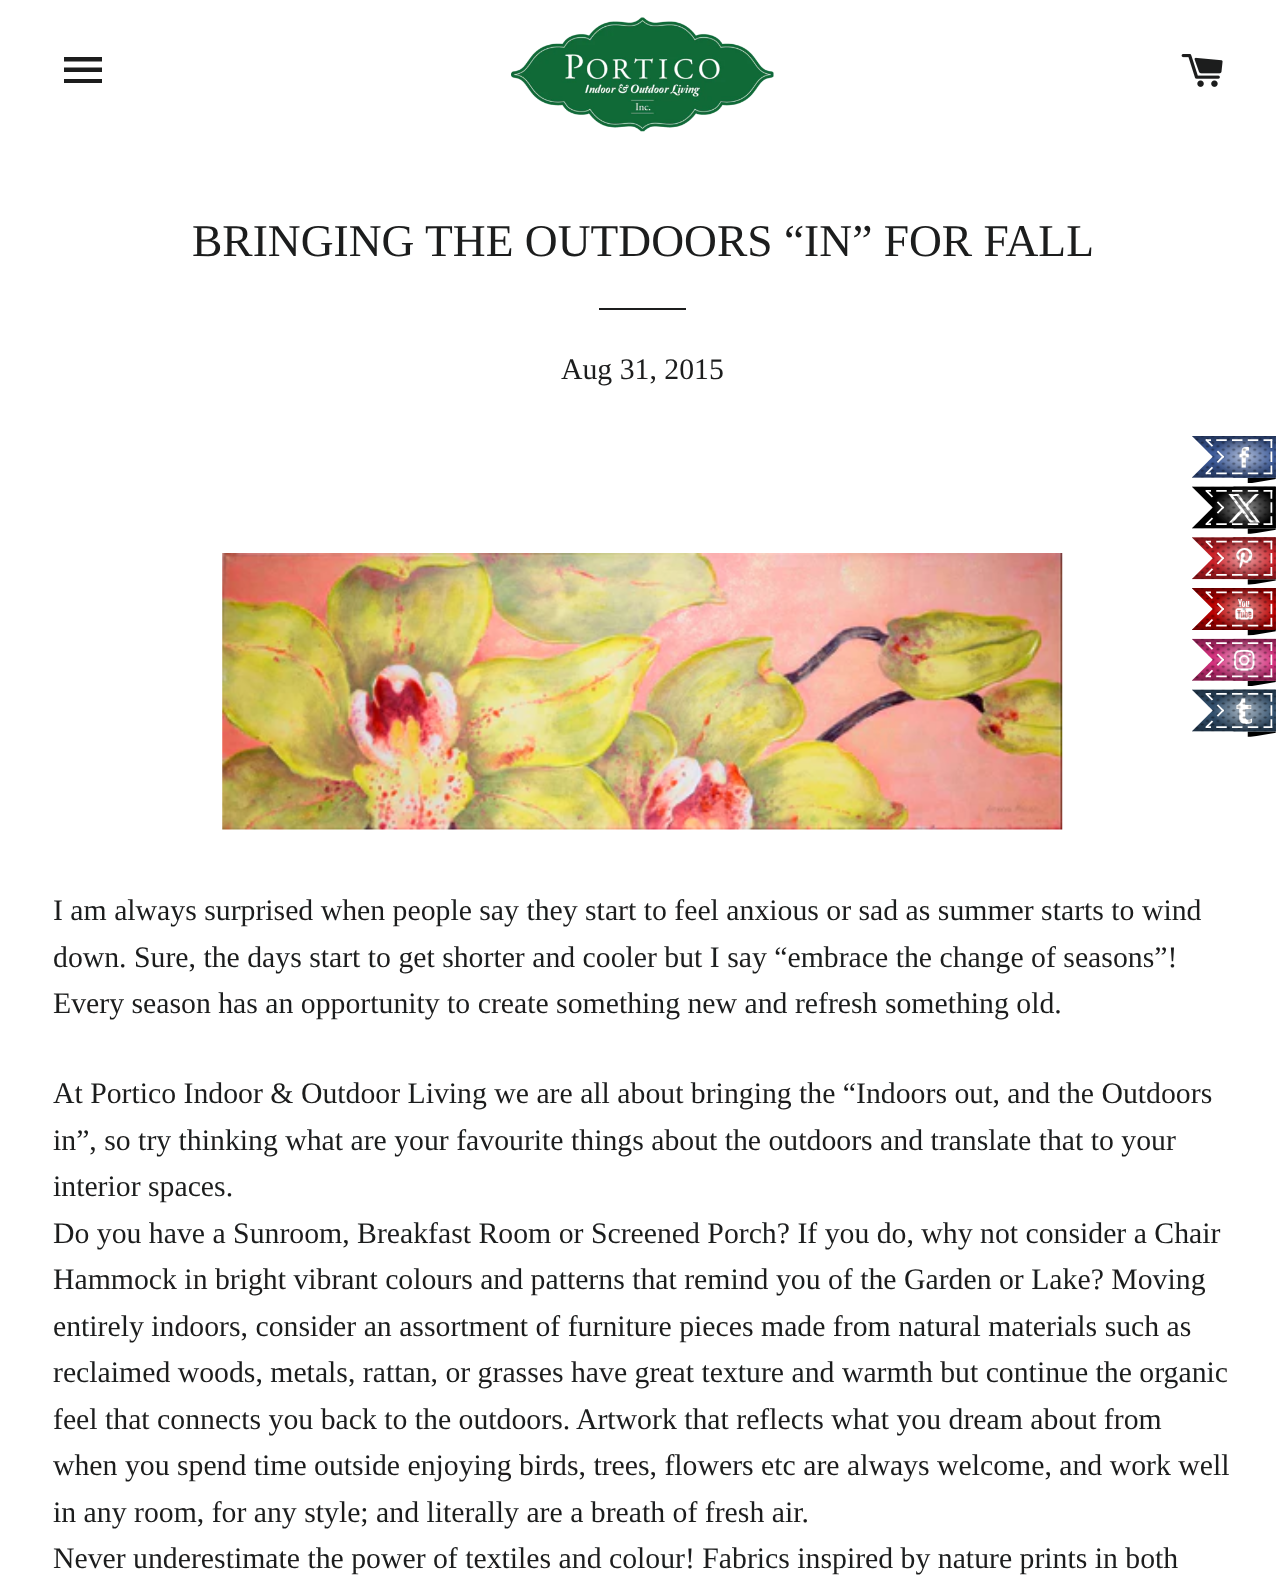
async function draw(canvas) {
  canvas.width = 1284;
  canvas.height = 1578;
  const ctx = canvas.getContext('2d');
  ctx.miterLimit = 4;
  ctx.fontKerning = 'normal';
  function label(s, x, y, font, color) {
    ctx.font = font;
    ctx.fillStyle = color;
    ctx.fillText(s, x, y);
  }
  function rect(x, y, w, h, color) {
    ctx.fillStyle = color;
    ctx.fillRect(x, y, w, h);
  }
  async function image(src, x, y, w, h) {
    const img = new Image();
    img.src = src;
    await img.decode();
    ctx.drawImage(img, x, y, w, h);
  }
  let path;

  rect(0, 0, 1284, 1578, '#fff');
  ctx.fillStyle = '#1c1d1d';
  path = new Path2D('M64 57H102V61.5H64ZM64 67.5H102V72H64ZM64 79H102V83H64Z');
  ctx.fill(path);
  await image('assets/img1.png', 511, 17, 263, 115);
  await image('assets/img2.png', 1181, 54, 42, 33);
  label('BRINGING THE OUTDOORS “IN” FOR FALL', 192, 256, '45.5px Liberation Serif', '#1c1d1d');
  rect(599, 308, 87, 2, '#1c1d1d');
  label('Aug 31, 2015', 561, 379, '29.75px Liberation Serif', '#1c1d1d');
  await image('assets/img3.png', 222, 553, 841, 277);
  label('I am always surprised when people say they start to feel anxious or sad as summer starts to wind', 53, 920, '29.75px Liberation Serif', '#1c1d1d');
  label('down. Sure, the days start to get shorter and cooler but I say “embrace the change of seasons”!', 53, 967, '29.75px Liberation Serif', '#1c1d1d');
  label('Every season has an opportunity to create something new and refresh something old.', 53, 1013, '29.75px Liberation Serif', '#1c1d1d');
  label('At Portico Indoor & Outdoor Living we are all about bringing the “Indoors out, and the Outdoors', 53, 1103, '29.75px Liberation Serif', '#1c1d1d');
  label('in”, so try thinking what are your favourite things about the outdoors and translate that to your', 53, 1150, '29.75px Liberation Serif', '#1c1d1d');
  label('interior spaces.', 53, 1196, '29.75px Liberation Serif', '#1c1d1d');
  label('Do you have a Sunroom, Breakfast Room or Screened Porch? If you do, why not consider a Chair', 53, 1243, '29.75px Liberation Serif', '#1c1d1d');
  label('Hammock in bright vibrant colours and patterns that remind you of the Garden or Lake? Moving', 53, 1289, '29.75px Liberation Serif', '#1c1d1d');
  label('entirely indoors, consider an assortment of furniture pieces made from natural materials such as', 53, 1336, '29.75px Liberation Serif', '#1c1d1d');
  label('reclaimed woods, metals, rattan, or grasses have great texture and warmth but continue the organic', 53, 1382, '29.75px Liberation Serif', '#1c1d1d');
  label('feel that connects you back to the outdoors. Artwork that reflects what you dream about from', 53, 1429, '29.75px Liberation Serif', '#1c1d1d');
  label('when you spend time outside enjoying birds, trees, flowers etc are always welcome, and work well', 53, 1475, '29.75px Liberation Serif', '#1c1d1d');
  label('in any room, for any style; and literally are a breath of fresh air.', 53, 1522, '29.75px Liberation Serif', '#1c1d1d');
  label('Never underestimate the power of textiles and colour! Fabrics inspired by nature prints in both', 53, 1568, '29.75px Liberation Serif', '#1c1d1d');
  await image('assets/img4.png', 1192, 436, 84, 301);
}

draw(document.querySelector('canvas'));
